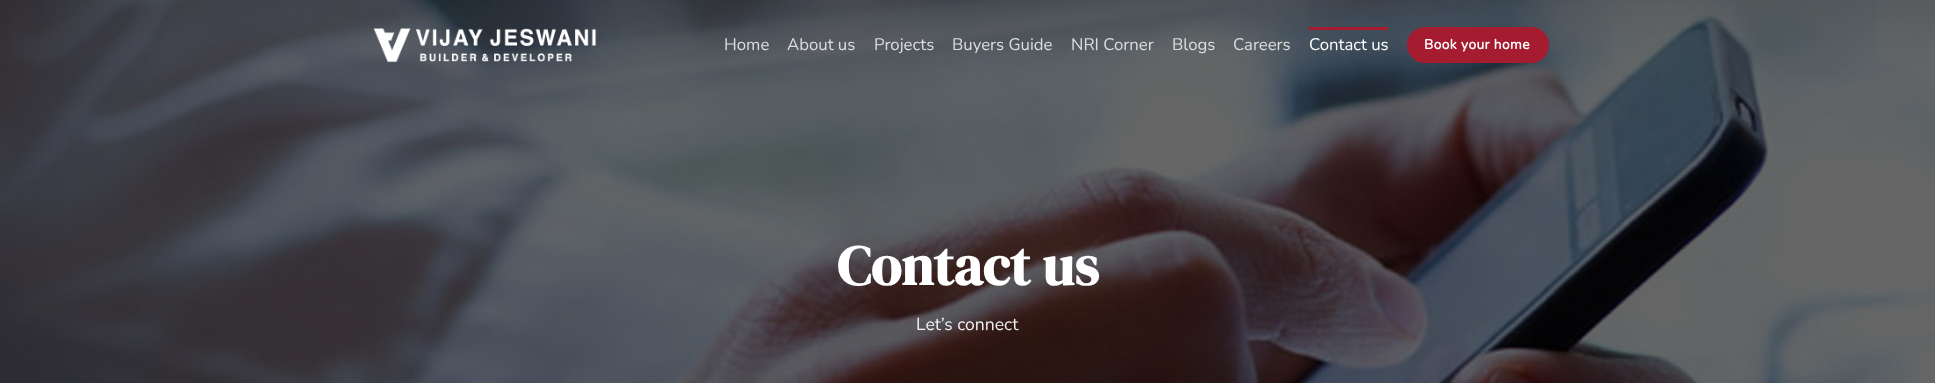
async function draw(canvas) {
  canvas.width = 1935;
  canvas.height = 383;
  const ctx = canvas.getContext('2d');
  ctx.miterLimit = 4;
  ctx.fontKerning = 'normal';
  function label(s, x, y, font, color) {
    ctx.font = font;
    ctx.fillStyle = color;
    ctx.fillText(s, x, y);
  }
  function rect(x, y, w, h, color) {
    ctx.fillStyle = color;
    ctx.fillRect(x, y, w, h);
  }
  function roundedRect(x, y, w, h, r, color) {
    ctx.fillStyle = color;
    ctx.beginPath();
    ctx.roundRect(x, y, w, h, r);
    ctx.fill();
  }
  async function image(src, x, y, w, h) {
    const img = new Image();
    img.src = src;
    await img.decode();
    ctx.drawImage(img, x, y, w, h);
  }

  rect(0, 0, 1935, 383, '#fff');
  await image('assets/img2.png', 0, 0, 1935, 383);
  await image('assets/img1.png', 373, 28, 224, 35);
  label('Home', 724, 50, '200 16.75px Nunito', '#dcddde');
  label('About us', 787, 50, '200 16.75px Nunito', '#dcddde');
  label('Projects', 874, 50, '200 16.75px Nunito', '#dcddde');
  label('Buyers Guide', 952, 50, '200 16.75px Nunito', '#dcddde');
  label('NRI Corner', 1071, 50, '200 16.75px Nunito', '#dcddde');
  label('Blogs', 1172, 50, '200 16.75px Nunito', '#dcddde');
  label('Careers', 1233, 50, '200 16.75px Nunito', '#dcddde');
  rect(1309, 27, 79, 3, '#a51c30');
  label('Contact us', 1309, 50, '200 16.75px Nunito', '#fff');
  roundedRect(1407, 27, 142, 36, 18, '#a51c30');
  ctx.letterSpacing = '0.4px';
  label('Book your home', 1424, 49, 'bold 13.75px Nunito', '#fff');
  ctx.letterSpacing = '0px';
  label('Contact us', 837, 285, 'bold 56px DM Serif Display', '#fff');
  label('Let’s connect', 916, 330, '200 17.5px Nunito', '#f1f1f1');
}

draw(document.querySelector('canvas'));
